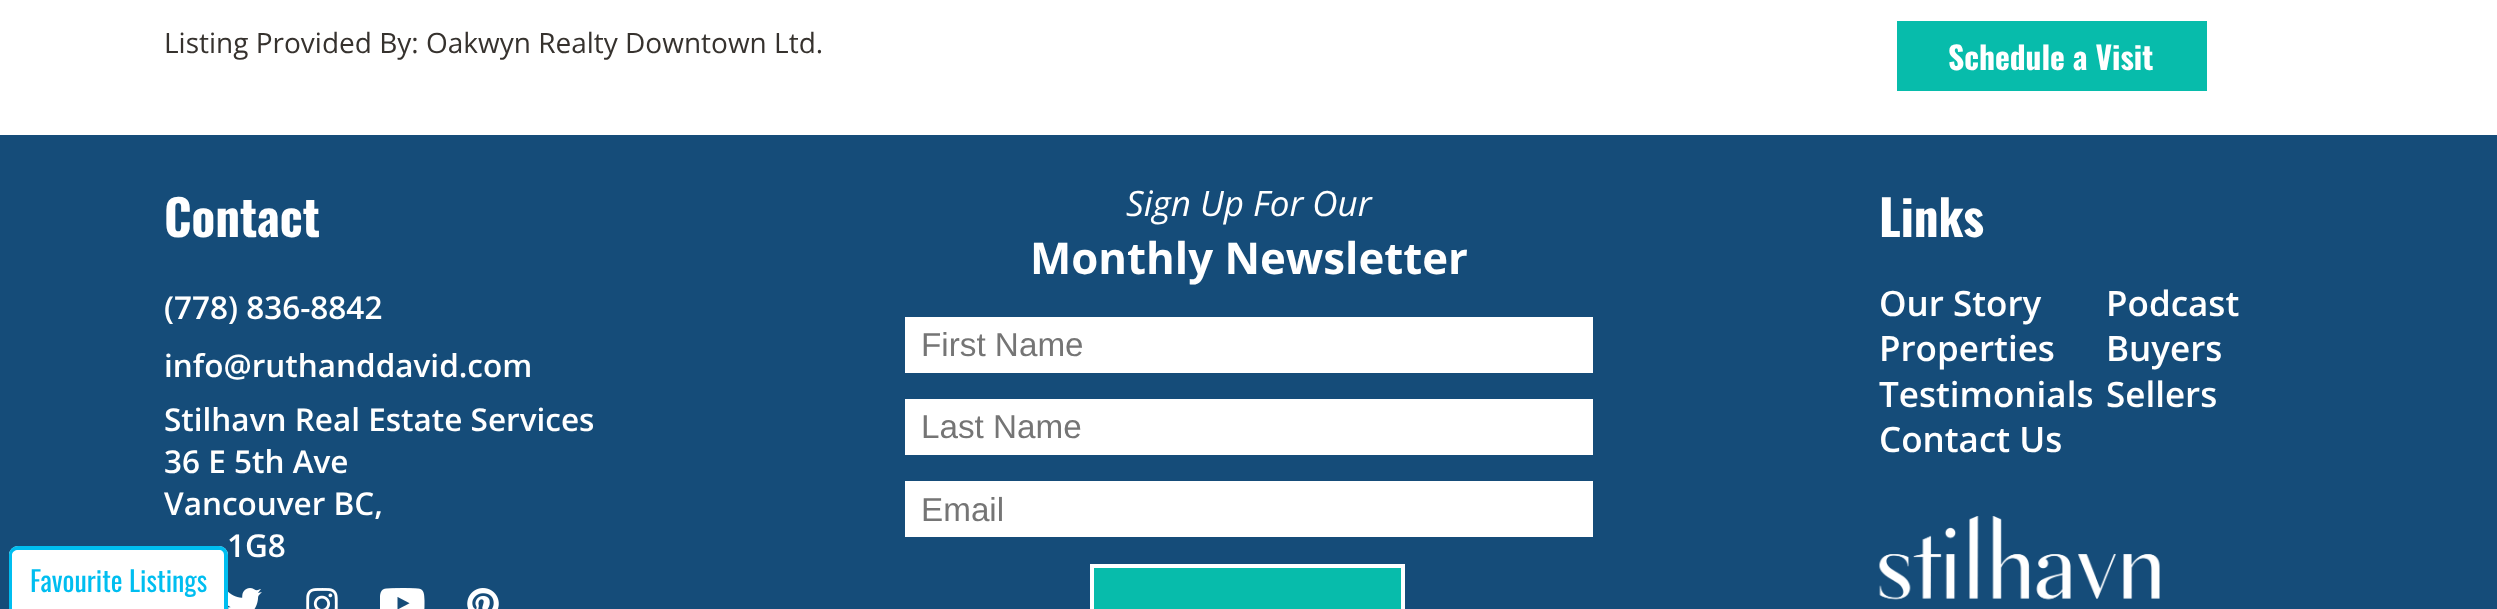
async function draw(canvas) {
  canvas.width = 2497;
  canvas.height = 609;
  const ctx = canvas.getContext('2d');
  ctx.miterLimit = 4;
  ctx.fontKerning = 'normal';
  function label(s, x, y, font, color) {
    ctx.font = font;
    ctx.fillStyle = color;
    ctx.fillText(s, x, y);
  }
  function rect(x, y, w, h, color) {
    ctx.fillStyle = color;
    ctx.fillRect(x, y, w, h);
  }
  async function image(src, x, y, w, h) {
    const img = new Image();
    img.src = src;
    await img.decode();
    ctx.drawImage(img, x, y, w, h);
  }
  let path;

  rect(0, 0, 2497, 609, '#fff');
  label('Listing Provided By: Oakwyn Realty Downtown Ltd.', 164, 53, '28px Open Sans', '#36322e');
  rect(1897, 21, 310, 70, '#07bcab');
  label('Schedule a Visit', 1948, 70, 'bold 31.5px Oswald', '#fff');
  rect(0, 135, 2497, 474, '#154c79');
  label('Contact', 164, 237, 'bold 49px Oswald', '#fff');
  label('(778) 836-8842', 164, 319, '600 31.5px Open Sans', '#fff');
  label('info@ruthanddavid.com', 164, 377, '600 31.5px Open Sans', '#fff');
  label('Stilhavn Real Estate Services', 164, 431, '600 31.5px Open Sans', '#fff');
  label('36 E 5th Ave', 164, 473, '600 31.5px Open Sans', '#fff');
  label('Vancouver BC,', 164, 515, '600 31.5px Open Sans', '#fff');
  label('1G8', 227, 557, '600 31.5px Open Sans', '#fff');
  await image('assets/img1.png', 228, 588, 34, 21);
  await image('assets/img2.png', 306, 588, 32, 21);
  await image('assets/img3.png', 380, 588, 45, 21);
  await image('assets/img4.png', 467, 588, 32, 21);
  label('Sign Up For Our', 1126, 216, 'italic 35px Open Sans', '#fff');
  label('Monthly Newsletter', 1030, 274, 'bold 43.75px Open Sans', '#fff');
  rect(905, 317, 688, 56, '#fff');
  label('First Name', 921, 356, '33.25px Liberation Sans', '#757575');
  rect(905, 399, 688, 56, '#fff');
  label('Last Name', 921, 438, '33.25px Liberation Sans', '#757575');
  rect(905, 481, 688, 56, '#fff');
  label('Email', 921, 521, '33.25px Liberation Sans', '#757575');
  ctx.fillStyle = '#07bcab';
  ctx.beginPath();
  ctx.rect(1092, 566, 311, 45);
  ctx.fill();
  ctx.strokeStyle = '#fff';
  ctx.lineWidth = 4;
  ctx.stroke();
  label('Links', 1879, 237, 'bold 49px Oswald', '#fff');
  label('Our Story', 1879, 316, '600 35px Open Sans', '#fff');
  label('Podcast', 2106, 316, '600 35px Open Sans', '#fff');
  label('Properties', 1879, 361, '600 35px Open Sans', '#fff');
  label('Buyers', 2106, 361, '600 35px Open Sans', '#fff');
  label('Testimonials', 1879, 407, '600 35px Open Sans', '#fff');
  label('Sellers', 2106, 407, '600 35px Open Sans', '#fff');
  label('Contact Us', 1879, 452, '600 35px Open Sans', '#fff');
  await image('assets/img5.png', 1879, 516, 281, 84);
  ctx.beginPath();
  ctx.roundRect(9, 546, 219, 63, [9, 9, 0, 0]);
  ctx.fill();
  ctx.fillStyle = '#00bef0';
  path = new Path2D('M18 546H219C224 546 228 550 228 555V609H9V555C9 550 13 546 18 546ZM18 550H219C222 550 224 552 224 555V609H12V555C12 552 15 550 18 550Z');
  ctx.fill(path, 'evenodd');
  label('Favourite Listings', 30, 592, '28px Oswald', '#00bef0');
}

draw(document.querySelector('canvas'));
